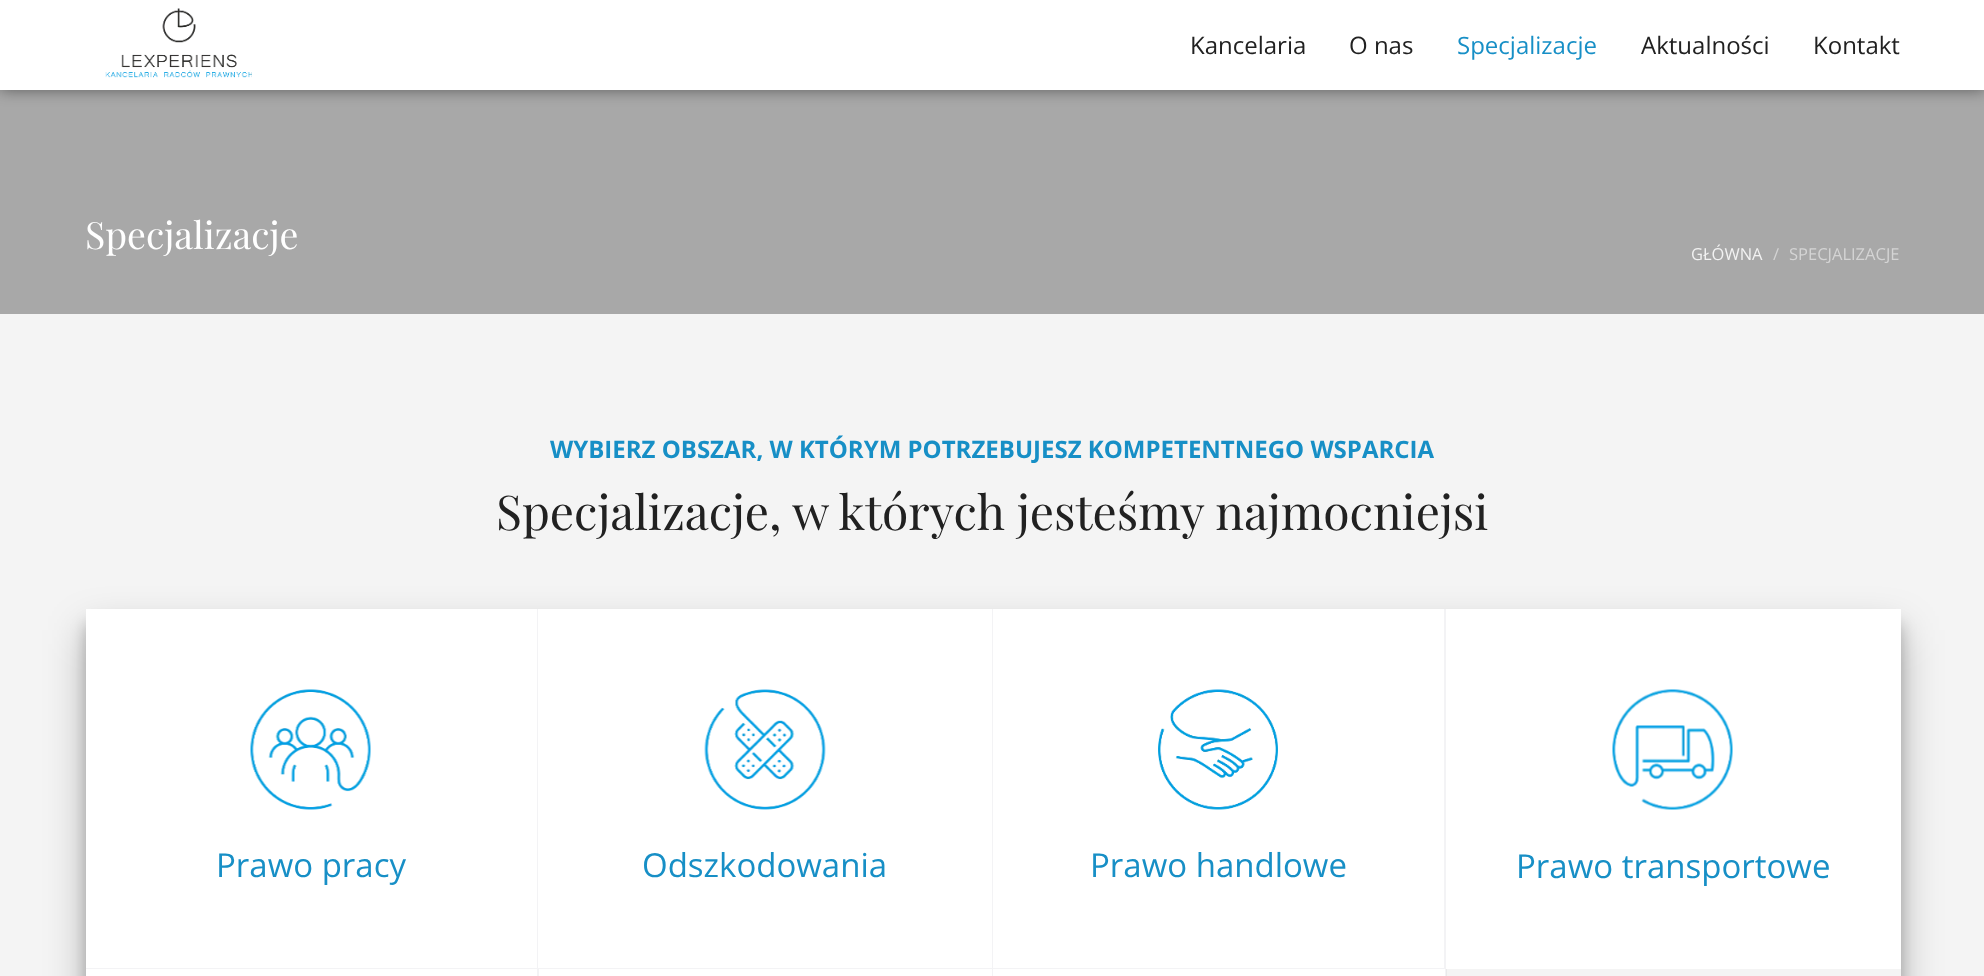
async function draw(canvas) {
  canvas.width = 1984;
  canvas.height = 976;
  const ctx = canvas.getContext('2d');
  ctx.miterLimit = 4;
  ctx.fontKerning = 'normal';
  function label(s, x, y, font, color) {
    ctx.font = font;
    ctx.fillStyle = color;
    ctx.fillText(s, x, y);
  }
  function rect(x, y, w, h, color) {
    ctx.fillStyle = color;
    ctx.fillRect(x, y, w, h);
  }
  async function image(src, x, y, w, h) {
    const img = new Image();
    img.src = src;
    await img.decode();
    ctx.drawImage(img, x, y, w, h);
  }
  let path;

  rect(0, 0, 1984, 976, '#a8a8a8');
  ctx.fillStyle = '#00000073';
  ctx.filter = 'blur(7.5px)';
  ctx.beginPath();
  ctx.rect(0, 0, 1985, 90);
  ctx.fill();
  ctx.filter = 'none';
  rect(0, 0, 1984, 90, '#fff');
  await image('assets/img1.png', 105, 8, 147, 70);
  label('Kancelaria', 1190, 54, '24px Open Sans', '#212121');
  label('O nas', 1349, 54, '24px Open Sans', '#212121');
  label('Specjalizacje', 1457, 54, '24px Open Sans', '#178fc6');
  label('Aktualności', 1641, 54, '24px Open Sans', '#212121');
  label('Kontakt', 1813, 54, '24px Open Sans', '#212121');
  label('Specjalizacje', 85, 249, '37.5px Playfair Display', '#fff');
  label('GŁÓWNA', 1691, 260, '16.5px Open Sans', '#f2f2f2');
  label('/', 1773, 260, '16.5px Open Sans', '#d4d4d4');
  label('SPECJALIZACJE', 1789, 260, '16.5px Open Sans', '#d4d4d4');
  rect(0, 314, 1984, 662, '#f4f4f4');
  rect(1446, 969, 1, 7, '#e9e9ea');
  label('WYBIERZ OBSZAR, W KTÓRYM POTRZEBUJESZ KOMPETENTNEGO WSPARCIA', 550, 458, 'bold 24px Open Sans', '#178fc6');
  label('Specjalizacje, w których jesteśmy najmocniejsi', 496, 530, '48px Playfair Display', '#212121');
  ctx.save();
  path = new Path2D('M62 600H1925V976H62ZM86 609H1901V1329H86Z');
  ctx.clip(path, 'evenodd');
  ctx.fillStyle = '#00000038';
  ctx.filter = 'blur(7.5px)';
  ctx.beginPath();
  ctx.rect(86, 624, 1815, 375);
  ctx.fill();
  ctx.filter = 'none';
  ctx.restore();
  ctx.save();
  path = new Path2D('M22 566H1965V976H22ZM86 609H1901V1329H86Z');
  ctx.clip(path, 'evenodd');
  ctx.fillStyle = '#00000040';
  ctx.filter = 'blur(21px)';
  ctx.beginPath();
  ctx.rect(86, 630, 1815, 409);
  ctx.fill();
  ctx.filter = 'none';
  ctx.restore();
  rect(86, 609, 1815, 360, '#fff');
  ctx.fillStyle = '#f3f3f5';
  path = new Path2D('M538 609V969L537 968V609Z');
  ctx.fill(path);
  ctx.fillStyle = '#1212320d';
  path = new Path2D('M538 969H86V968H537Z');
  ctx.fill(path);
  await image('assets/img2.png', 250, 689, 121, 121);
  label('Prawo pracy', 216, 877, '33px Open Sans', '#178fc6');
  ctx.fillStyle = '#f3f3f5';
  path = new Path2D('M993 609V969L992 968V609Z');
  ctx.fill(path);
  ctx.fillStyle = '#1212320d';
  path = new Path2D('M993 969H538V968H992Z');
  ctx.fill(path);
  await image('assets/img3.png', 704, 689, 122, 121);
  label('Odszkodowania', 642, 877, '33px Open Sans', '#178fc6');
  ctx.fillStyle = '#f3f3f5';
  path = new Path2D('M1446 609V969L1444 968V609Z');
  ctx.fill(path);
  ctx.fillStyle = '#1212320d';
  path = new Path2D('M1446 969H993V968H1444Z');
  ctx.fill(path);
  await image('assets/img4.png', 1158, 689, 120, 121);
  label('Prawo handlowe', 1090, 877, '33px Open Sans', '#178fc6');
  await image('assets/img5.png', 1612, 689, 121, 121);
  label('Prawo transportowe', 1516, 878, '33px Open Sans', '#178fc6');
  rect(86, 969, 1360, 7, '#fff');
  rect(537, 969, 2, 7, '#f3f3f5');
  rect(992, 969, 1, 7, '#f3f3f5');
  rect(1445, 969, 1, 7, '#f3f3f5');
}

draw(document.querySelector('canvas'));
